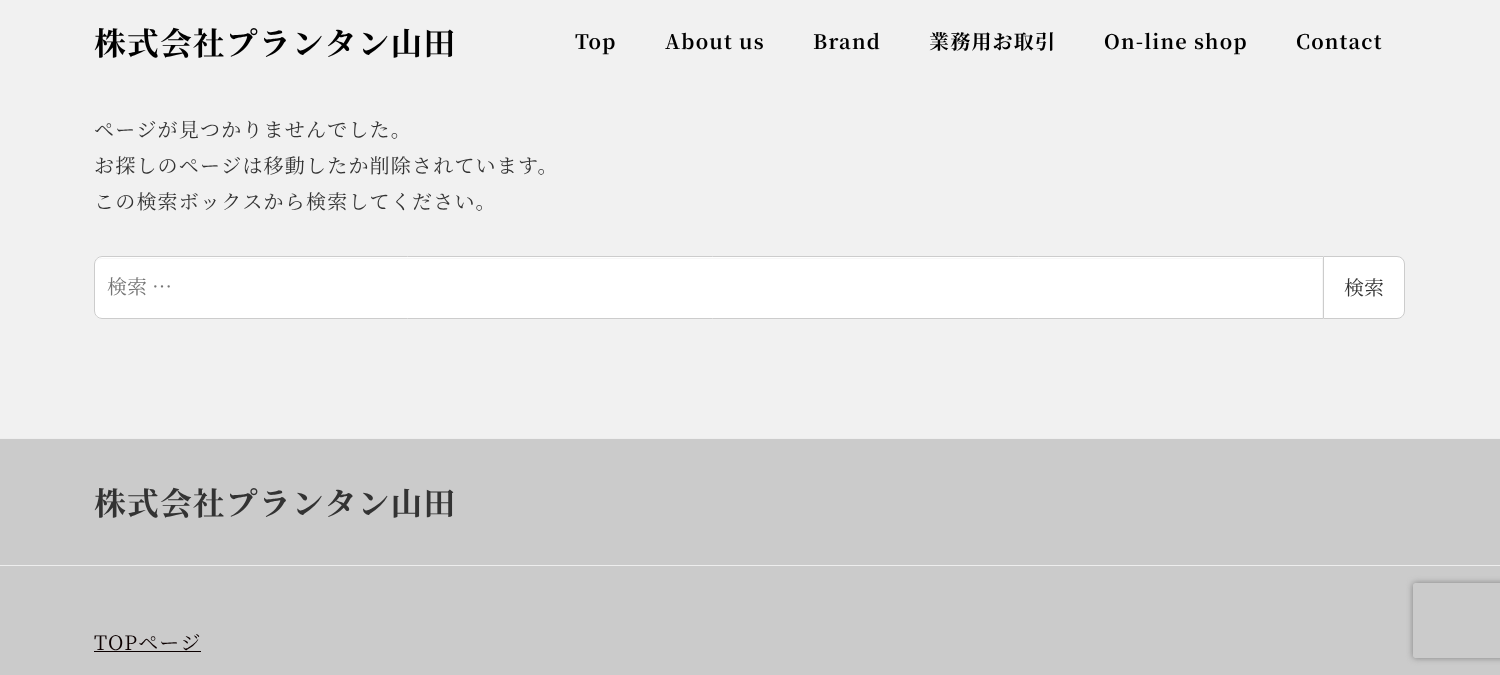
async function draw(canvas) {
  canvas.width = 1500;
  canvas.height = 675;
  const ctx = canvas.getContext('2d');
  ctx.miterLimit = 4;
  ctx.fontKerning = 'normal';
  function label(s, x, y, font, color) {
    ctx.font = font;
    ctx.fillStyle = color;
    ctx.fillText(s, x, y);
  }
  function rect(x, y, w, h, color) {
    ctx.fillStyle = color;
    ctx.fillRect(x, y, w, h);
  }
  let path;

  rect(0, 0, 1500, 675, '#f1f1f1');
  ctx.letterSpacing = '1.2px';
  label('株式会社プランタン山田', 94, 55, 'bold 31.75px Noto Serif JP', '#000');
  label('Top', 575, 49, 'bold 20px Noto Serif JP', '#000');
  label('About', 665, 49, 'bold 20px Noto Serif JP', '#000');
  label('us', 739, 49, 'bold 20px Noto Serif JP', '#000');
  label('Brand', 813, 49, 'bold 20px Noto Serif JP', '#000');
  label('業務用お取引', 929, 49, 'bold 20px Noto Serif JP', '#000');
  label('On-line', 1104, 49, 'bold 20px Noto Serif JP', '#000');
  label('shop', 1194, 49, 'bold 20px Noto Serif JP', '#000');
  label('Contact', 1296, 49, 'bold 20px Noto Serif JP', '#000');
  label('ページが見つかりませんでした。', 94, 137, '20px Noto Serif JP', '#333');
  label('お探しのページは移動したか削除されています。', 94, 173, '20px Noto Serif JP', '#333');
  label('この検索ボックスから検索してください。', 94, 209, '20px Noto Serif JP', '#333');
  ctx.fillStyle = '#fff';
  ctx.beginPath();
  ctx.roundRect(1323.5, 256.5, 81, 62, [0, 7.5, 7.5, 0]);
  ctx.fill();
  ctx.strokeStyle = '#ccc';
  ctx.stroke();
  ctx.beginPath();
  ctx.roundRect(94, 256, 1230, 63, [8, 0, 0, 8]);
  ctx.fill();
  ctx.fillStyle = '#f6f6f6';
  path = new Path2D('M101 259H1322V318H1323V258H101C97 258 95 261 95 265C95 262 98 259 101 259Z');
  ctx.fill(path);
  ctx.beginPath();
  ctx.roundRect(94.5, 256.5, 1229, 62, [7.5, 0, 0, 7.5]);
  ctx.stroke();
  ctx.letterSpacing = '0px';
  label('検索', 107, 294, '20px Noto Serif JP', '#757575');
  label('…', 152, 294, '20px Noto Serif JP', '#757575');
  label('検索', 1344, 295, '20px Noto Serif JP', '#333');
  rect(0, 439, 1500, 236, '#cbcbcb');
  rect(0, 438, 1500, 1, '#eee');
  ctx.letterSpacing = '1.2px';
  label('株式会社プランタン山田', 94, 515, 'bold 31.75px Noto Serif JP', '#333');
  rect(0, 565, 1500, 1, '#eee');
  label('TOPページ', 94, 650, '20px Noto Serif JP', '#0c0000');
  rect(94, 651, 107, 1, '#0c0000');
  ctx.save();
  path = new Path2D('M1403 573H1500V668H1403ZM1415.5 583H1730.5C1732 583 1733 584 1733 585.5V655.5C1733 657 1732 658 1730.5 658H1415.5C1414 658 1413 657 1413 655.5V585.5C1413 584 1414 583 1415.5 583Z');
  ctx.clip(path, 'evenodd');
  ctx.fillStyle = '#808080';
  ctx.filter = 'blur(3px)';
  ctx.beginPath();
  ctx.roundRect(1413, 583, 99, 75, 2.5);
  ctx.fill();
  ctx.filter = 'none';
  ctx.restore();
}

draw(document.querySelector('canvas'));
